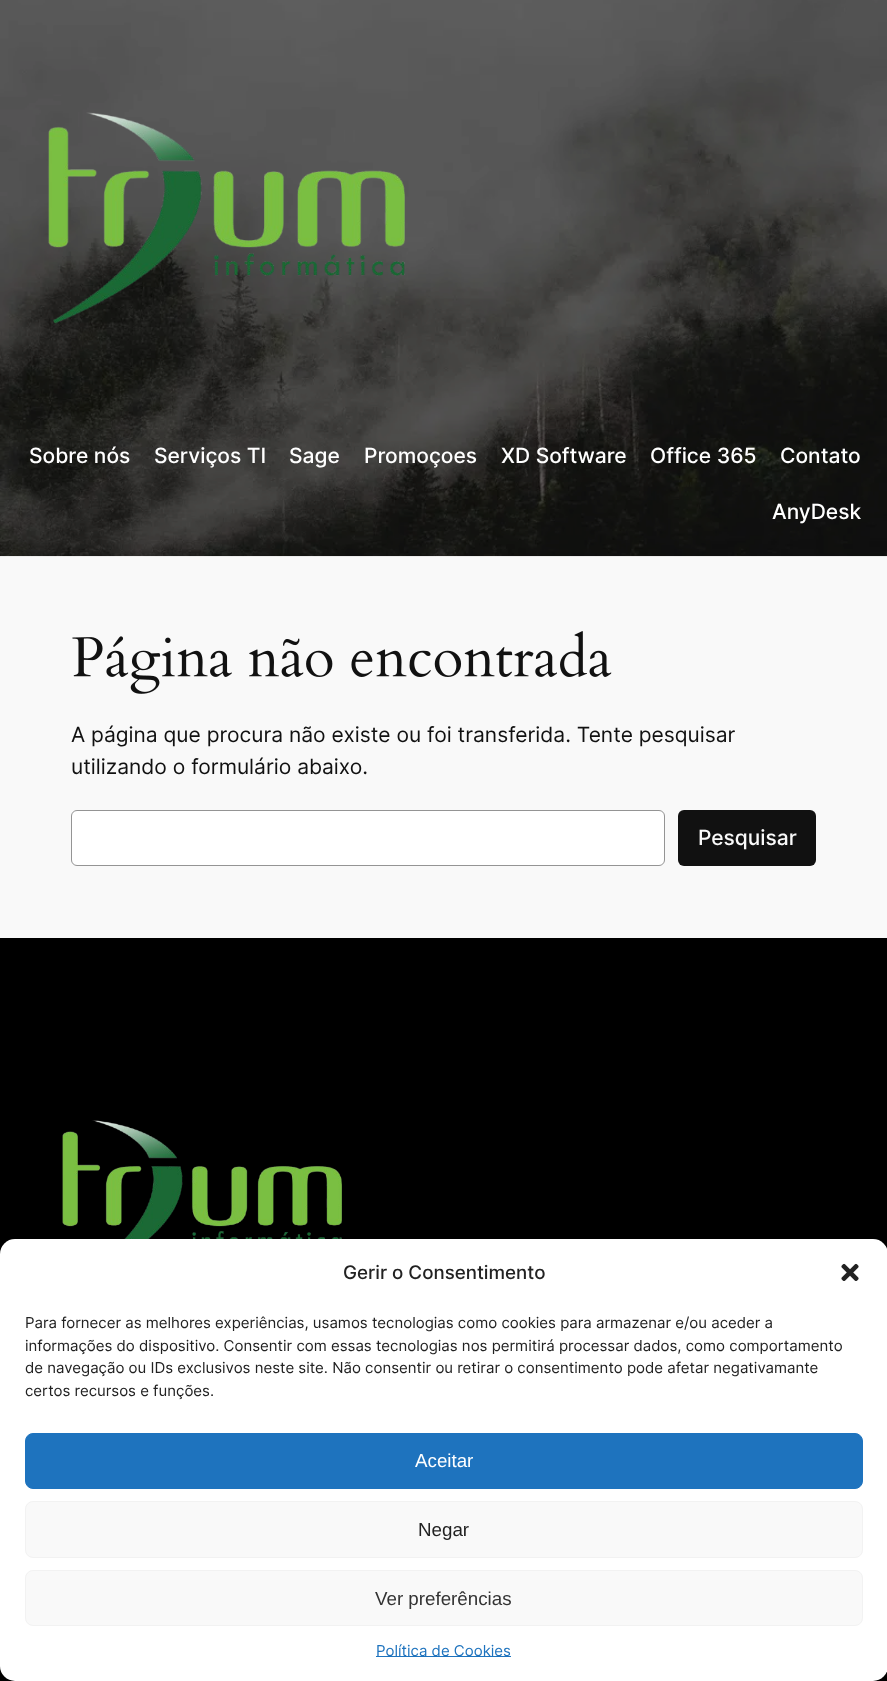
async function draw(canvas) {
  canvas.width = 887;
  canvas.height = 1681;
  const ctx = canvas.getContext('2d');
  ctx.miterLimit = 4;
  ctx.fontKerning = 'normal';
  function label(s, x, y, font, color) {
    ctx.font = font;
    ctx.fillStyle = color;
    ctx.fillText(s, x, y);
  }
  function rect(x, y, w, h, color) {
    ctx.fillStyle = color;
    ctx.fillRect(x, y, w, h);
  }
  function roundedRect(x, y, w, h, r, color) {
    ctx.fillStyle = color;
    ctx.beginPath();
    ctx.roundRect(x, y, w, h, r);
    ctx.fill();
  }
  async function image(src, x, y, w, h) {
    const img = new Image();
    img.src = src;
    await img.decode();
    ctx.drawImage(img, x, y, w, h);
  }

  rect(0, 0, 887, 1681, '#f9f9f9');
  await image('assets/img1.png', 0, 0, 887, 557);
  await image('assets/img2.png', 48, 112, 357, 212);
  label('Sobre nós', 29, 463, '500 21px Inter', '#fff');
  label('Serviços TI', 154, 463, '500 21px Inter', '#fff');
  label('Sage', 289, 463, '500 21px Inter', '#fff');
  label('Promoçoes', 364, 463, '500 21px Inter', '#fff');
  label('XD Software', 501, 463, '500 21px Inter', '#fff');
  label('Office 365', 650, 463, '500 21px Inter', '#fff');
  label('Contato', 780, 463, '500 21px Inter', '#fff');
  label('AnyDesk', 772, 519, '500 21px Inter', '#fff');
  await image('assets/img3.png', 72, 631, 540, 63);
  label('A página que procura não existe ou foi transferida. Tente pesquisar', 71, 742, '21px Inter', '#111');
  label('utilizando o formulário abaixo.', 71, 774, '21px Inter', '#111');
  ctx.fillStyle = '#fff';
  ctx.beginPath();
  ctx.roundRect(71.5, 810.5, 593, 55, 5.5);
  ctx.fill();
  ctx.strokeStyle = '#949494';
  ctx.stroke();
  roundedRect(678, 810, 138, 56, 6, '#111');
  label('Pesquisar', 698, 845, '500 21px Inter', '#f9f9f9');
  rect(0, 938, 887, 743, '#000');
  await image('assets/img4.png', 62, 1120, 280, 119);
  roundedRect(0, 1239, 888, 442, 15, '#fff');
  label('Gerir o Consentimento', 343, 1279, '500 18.75px Inter', '#222');
  await image('assets/img5.png', 841, 1263, 18, 18);
  label('Para fornecer as melhores experiências, usamos tecnologias como cookies para armazenar e/ou aceder a', 25, 1328, '15px Inter', '#222');
  label('informações do dispositivo. Consentir com essas tecnologias nos permitirá processar dados, como comportamento', 25, 1351, '15px Inter', '#222');
  label('de navegação ou IDs exclusivos neste site. Não consentir ou retirar o consentimento pode afetar negativamante', 25, 1373, '15px Inter', '#222');
  label('certos recursos e funções.', 25, 1396, '15px Inter', '#222');
  ctx.fillStyle = '#1e73be';
  ctx.beginPath();
  ctx.roundRect(25.5, 1433.5, 837, 55, 7.5);
  ctx.fill();
  ctx.strokeStyle = '#1e73be';
  ctx.stroke();
  label('Aceitar', 415, 1467, '18.75px Liberation Sans', '#fff');
  ctx.fillStyle = '#f9f9f9';
  ctx.beginPath();
  ctx.roundRect(25.5, 1501.5, 837, 56, 7.5);
  ctx.fill();
  ctx.strokeStyle = '#f2f2f2';
  ctx.stroke();
  label('Negar', 418, 1536, '18.75px Liberation Sans', '#222');
  ctx.fillStyle = '#f9f9f9';
  ctx.beginPath();
  ctx.roundRect(25.5, 1570.5, 837, 55, 7.5);
  ctx.fill();
  ctx.stroke();
  label('Ver preferências', 375, 1605, '18.75px Liberation Sans', '#333');
  rect(376, 1656, 135, 1, '#1e73be');
  label('Política de Cookies', 376, 1656, '15px Inter', '#1e73be');
}

draw(document.querySelector('canvas'));
